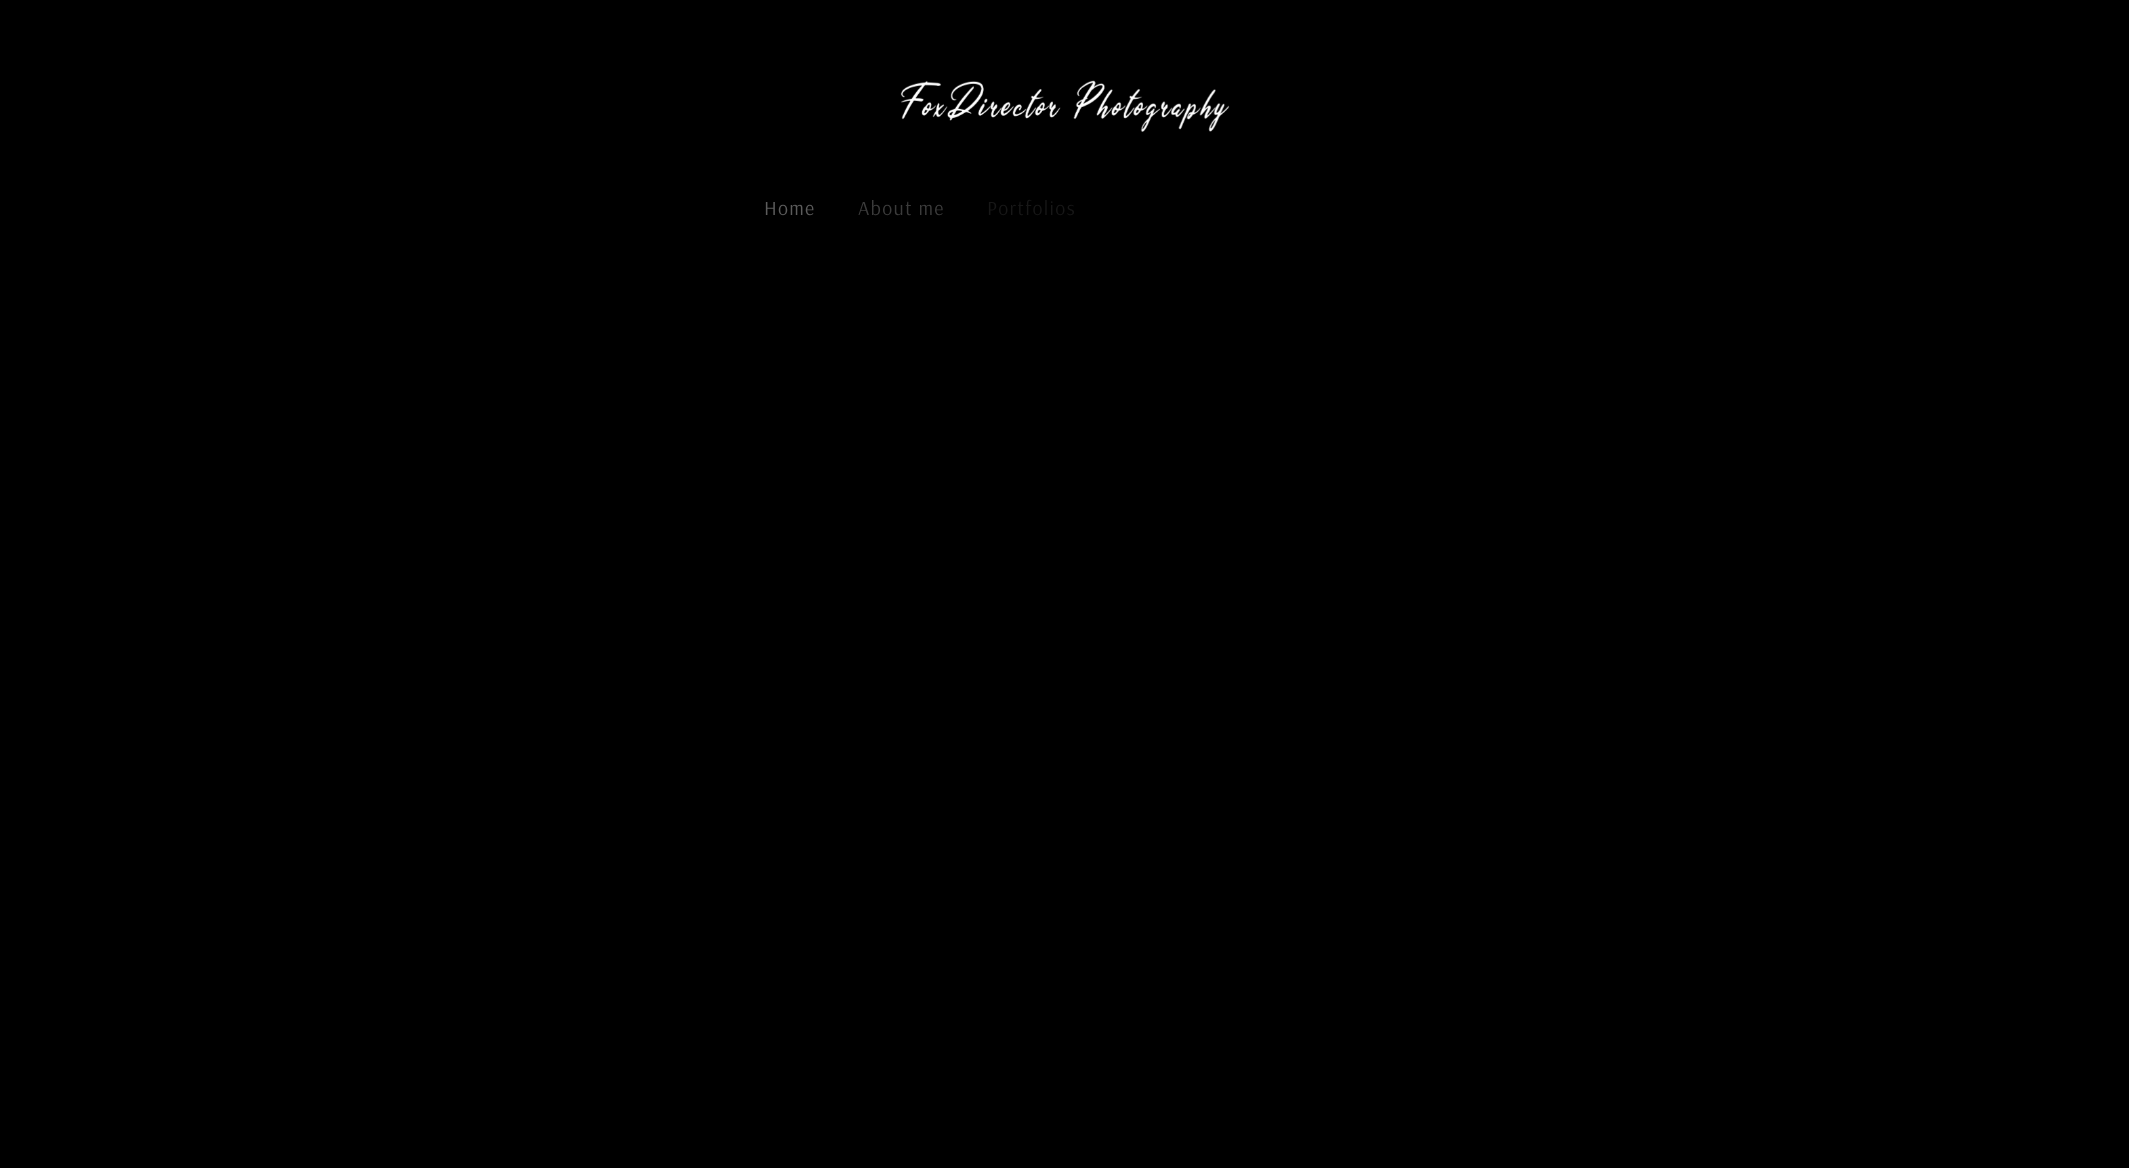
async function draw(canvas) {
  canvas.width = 2129;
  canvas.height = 1168;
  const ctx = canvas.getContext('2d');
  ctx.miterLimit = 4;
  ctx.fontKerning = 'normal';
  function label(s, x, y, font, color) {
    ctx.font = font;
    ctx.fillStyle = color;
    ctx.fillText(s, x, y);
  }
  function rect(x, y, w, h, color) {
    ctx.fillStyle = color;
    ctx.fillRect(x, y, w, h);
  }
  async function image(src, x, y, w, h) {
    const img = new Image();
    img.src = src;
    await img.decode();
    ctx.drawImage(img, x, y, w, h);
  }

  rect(0, 0, 2129, 1168, '#000');
  await image('assets/img1.png', 900, 80, 330, 52);
  ctx.letterSpacing = '1.25px';
  label('Home', 764, 215, '20px Arsenal', '#5c5c5c');
  label('About me', 858, 215, '20px Arsenal', '#3b3b3b');
  label('Portfolios', 987, 215, '20px Arsenal', '#171717');
}

draw(document.querySelector('canvas'));
